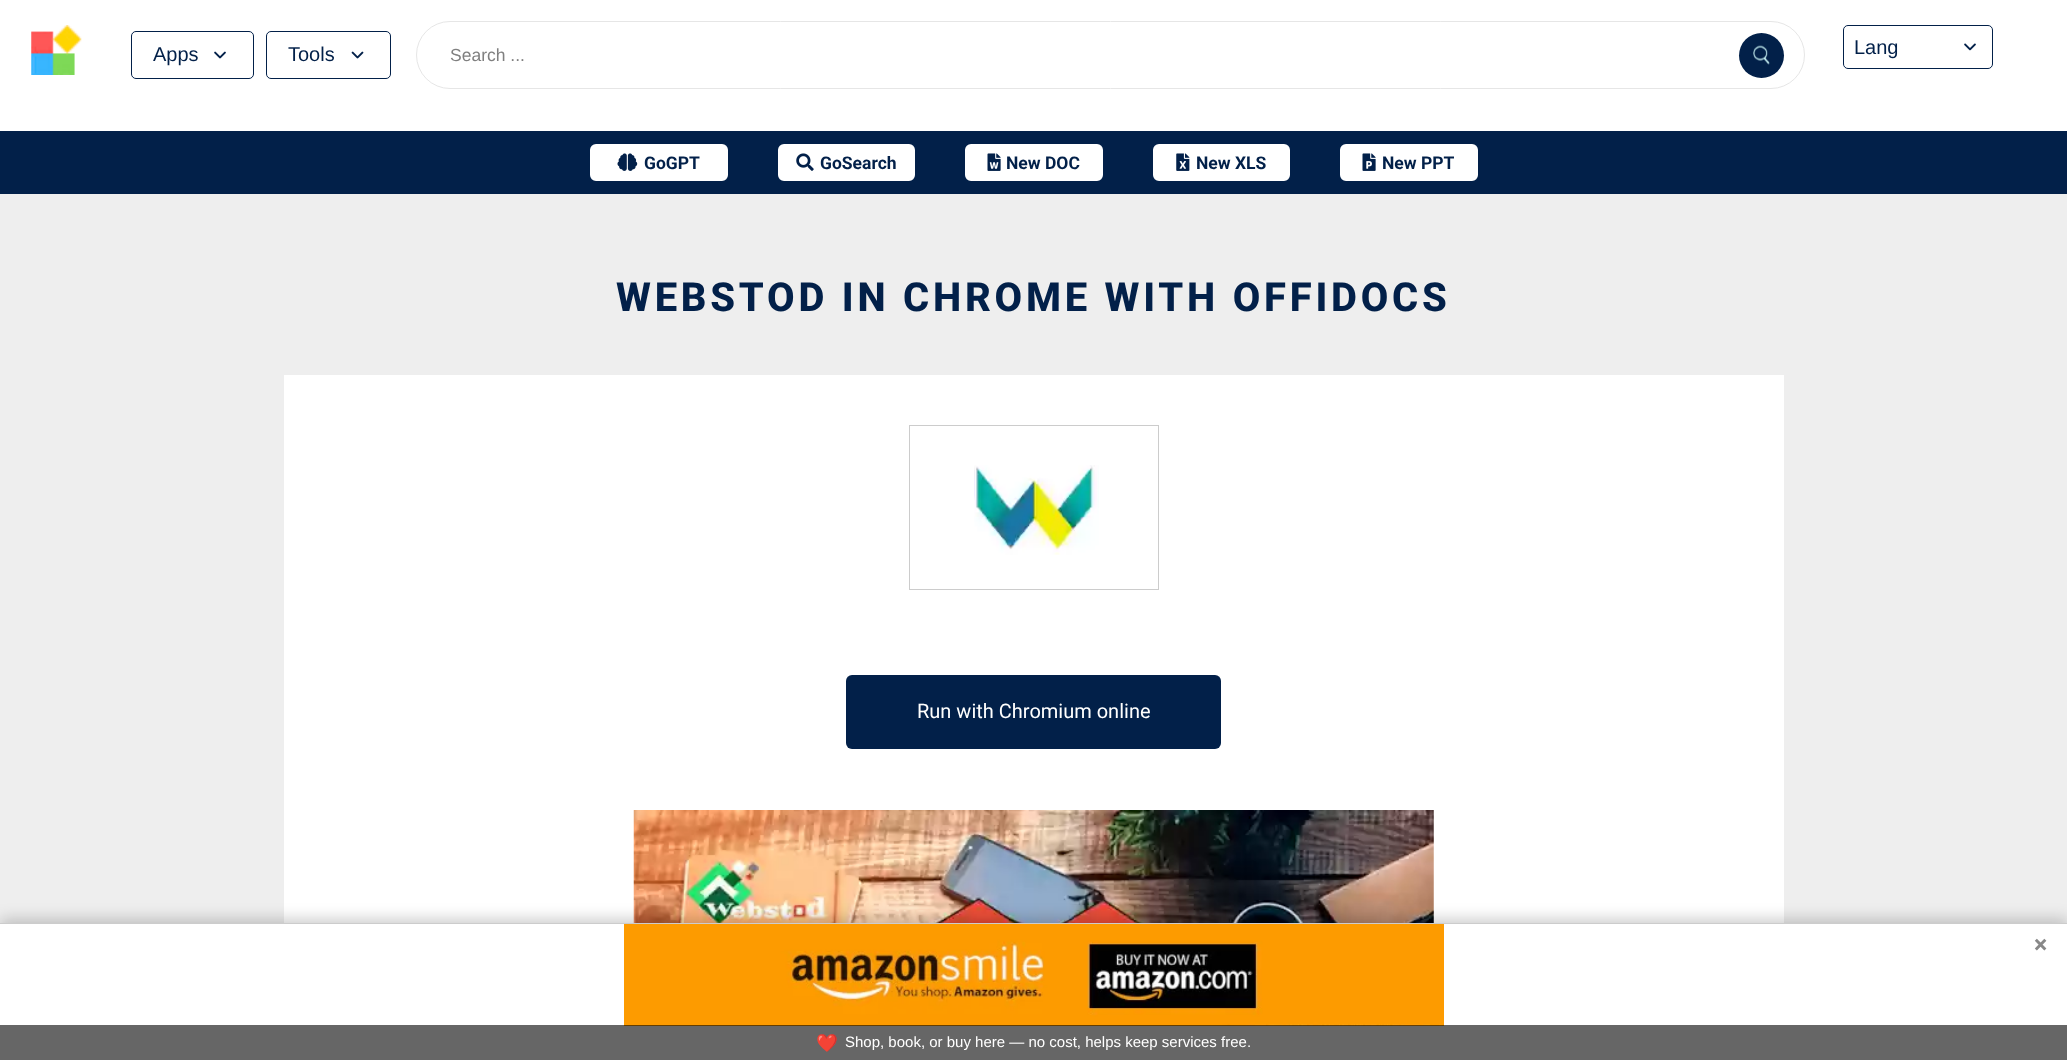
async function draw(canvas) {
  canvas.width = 2067;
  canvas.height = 1060;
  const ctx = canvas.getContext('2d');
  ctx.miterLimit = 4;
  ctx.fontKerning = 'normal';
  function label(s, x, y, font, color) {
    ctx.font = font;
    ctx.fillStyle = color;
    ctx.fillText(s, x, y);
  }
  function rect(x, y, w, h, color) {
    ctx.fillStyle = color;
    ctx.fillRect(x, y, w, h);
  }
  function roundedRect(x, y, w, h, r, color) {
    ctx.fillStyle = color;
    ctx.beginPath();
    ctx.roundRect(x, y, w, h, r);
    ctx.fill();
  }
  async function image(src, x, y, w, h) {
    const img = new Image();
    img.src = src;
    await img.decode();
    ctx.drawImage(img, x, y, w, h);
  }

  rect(0, 0, 2067, 1060, '#fff');
  await image('assets/img1.png', 31, 25, 51, 50);
  ctx.beginPath();
  ctx.roundRect(131.5, 31.5, 122, 47, 4.5);
  ctx.strokeStyle = '#022049';
  ctx.stroke();
  label('Apps', 153, 61, '20px Liberation Sans', '#022049');
  await image('assets/img2.png', 214, 51, 12, 8);
  ctx.beginPath();
  ctx.roundRect(266.5, 31.5, 124, 47, 4.5);
  ctx.stroke();
  label('Tools', 288, 61, '20px Liberation Sans', '#022049');
  await image('assets/img3.png', 351, 51, 13, 8);
  ctx.beginPath();
  ctx.roundRect(416.5, 21.5, 1388, 67, 33.5);
  ctx.strokeStyle = '#e6e6e6';
  ctx.stroke();
  label('Search ...', 450, 61, '17.5px Liberation Sans', '#808080');
  ctx.fillStyle = '#022049';
  ctx.beginPath();
  ctx.arc(1761.5, 55.5, 22.5, 0, 2 * Math.PI);
  ctx.fill();
  await image('assets/img4.png', 1753, 45, 17, 20);
  ctx.beginPath();
  ctx.roundRect(1843.5, 25.5, 149, 43, 4.5);
  ctx.strokeStyle = '#022049';
  ctx.stroke();
  label('Lang', 1854, 54, '20px Liberation Sans', '#022049');
  await image('assets/img5.png', 1964, 43, 12, 8);
  rect(0, 131, 2067, 63, '#022049');
  ctx.fillStyle = '#fff';
  ctx.beginPath();
  ctx.roundRect(591.5, 145.5, 135, 34, 4.5);
  ctx.fill();
  ctx.strokeStyle = '#fff';
  ctx.lineWidth = 3;
  ctx.stroke();
  await image('assets/img6.png', 617, 153, 21, 18);
  label('GoGPT', 644, 169, 'bold 17.5px Roboto', '#022049');
  ctx.fillStyle = '#fff';
  ctx.beginPath();
  ctx.roundRect(779.5, 145.5, 134, 34, 4.5);
  ctx.fill();
  ctx.stroke();
  await image('assets/img7.png', 796, 153, 18, 18);
  label('GoSearch', 820, 169, 'bold 17.5px Roboto', '#022049');
  ctx.fillStyle = '#fff';
  ctx.beginPath();
  ctx.roundRect(966.5, 145.5, 135, 34, 4.5);
  ctx.fill();
  ctx.stroke();
  await image('assets/img8.png', 987, 153, 14, 18);
  label('New DOC', 1006, 169, 'bold 17.5px Roboto', '#022049');
  ctx.fillStyle = '#fff';
  ctx.beginPath();
  ctx.roundRect(1154.5, 145.5, 134, 34, 4.5);
  ctx.fill();
  ctx.stroke();
  await image('assets/img9.png', 1176, 153, 14, 18);
  label('New XLS', 1196, 169, 'bold 17.5px Roboto', '#022049');
  ctx.fillStyle = '#fff';
  ctx.beginPath();
  ctx.roundRect(1341.5, 145.5, 135, 34, 4.5);
  ctx.fill();
  ctx.stroke();
  await image('assets/img10.png', 1362, 153, 14, 18);
  label('New PPT', 1382, 169, 'bold 17.5px Roboto', '#022049');
  rect(0, 194, 2067, 729, '#eee');
  ctx.letterSpacing = '3.75px';
  label('WEBSTOD IN CHROME WITH OFFIDOCS', 616, 311, '800 40px Roboto', '#022049');
  rect(284, 375, 1500, 548, '#fff');
  ctx.strokeStyle = '#ccc';
  ctx.lineWidth = 1;
  ctx.strokeRect(909.5, 425.5, 249, 164);
  await image('assets/img11.png', 974, 465, 125, 90);
  roundedRect(846, 675, 375, 74, 6, '#022049');
  ctx.letterSpacing = '0px';
  label('Run with Chromium online', 917, 718, '20px Roboto', '#fff');
  await image('assets/img12.png', 633, 810, 801, 113);
  ctx.fillStyle = '#00000033';
  ctx.filter = 'blur(7.5px)';
  ctx.beginPath();
  ctx.rect(0, 919, 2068, 137);
  ctx.fill();
  ctx.filter = 'none';
  rect(0, 924, 2067, 136, '#fff');
  rect(0, 923, 2067, 1, '#ccc');
  label('×', 2034, 953, 'bold 25px Roboto', '#888');
  await image('assets/img13.png', 624, 924, 820, 102);
  rect(0, 1025, 2067, 35, '#00000099');
  label('❤️', 816, 1049, '17.5px Noto Color Emoji', '#fff');
  label('Shop, book, or buy here — no cost, helps keep services free.', 845, 1047, '15px Liberation Sans', '#fff');
}

draw(document.querySelector('canvas'));
